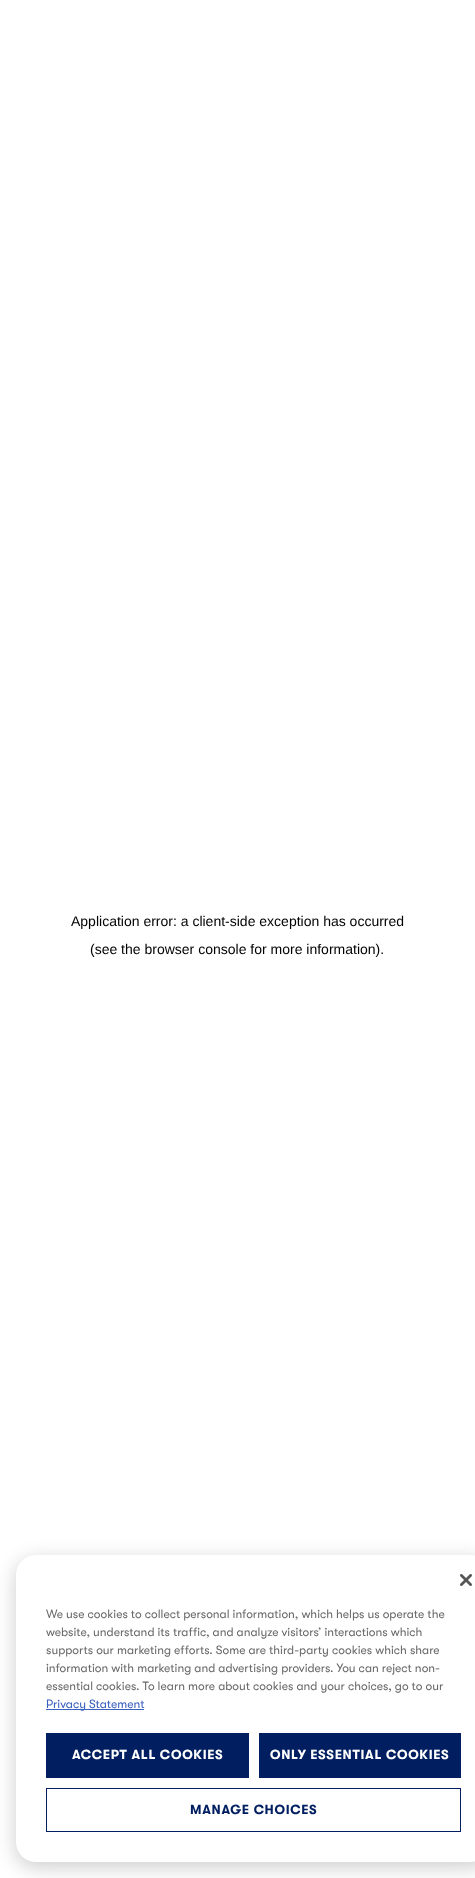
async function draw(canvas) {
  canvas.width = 475;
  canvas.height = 1878;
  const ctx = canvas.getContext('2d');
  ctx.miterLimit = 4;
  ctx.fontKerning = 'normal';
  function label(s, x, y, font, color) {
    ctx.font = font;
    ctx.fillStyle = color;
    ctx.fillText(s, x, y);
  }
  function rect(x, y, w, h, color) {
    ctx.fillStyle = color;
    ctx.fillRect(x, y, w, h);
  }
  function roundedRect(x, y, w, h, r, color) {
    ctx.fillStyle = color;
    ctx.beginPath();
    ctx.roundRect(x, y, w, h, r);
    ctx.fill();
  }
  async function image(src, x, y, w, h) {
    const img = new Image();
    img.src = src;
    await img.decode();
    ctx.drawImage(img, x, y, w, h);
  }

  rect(0, 0, 475, 1878, '#fff');
  label('Application error: a client-side exception has occurred', 71, 926, '14px Liberation Sans', '#000');
  label('(see the browser console for more information).', 90, 954, '14px Liberation Sans', '#000');
  ctx.fillStyle = '#00000033';
  ctx.filter = 'blur(10px)';
  ctx.beginPath();
  ctx.roundRect(16, 1560, 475, 307, 20);
  ctx.fill();
  ctx.filter = 'none';
  roundedRect(16, 1555, 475, 307, 20, '#fff');
  await image('assets/img1.png', 460, 1574, 12, 12);
  label('We use cookies to collect personal information, which helps us operate the', 46, 1618, '12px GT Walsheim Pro', '#696969');
  label('website, understand its traffic, and analyze visitors’ interactions which', 46, 1636, '12px GT Walsheim Pro', '#696969');
  label('supports our marketing efforts. Some are third-party cookies which share', 46, 1654, '12px GT Walsheim Pro', '#696969');
  label('information with marketing and advertising providers. You can reject non-', 46, 1672, '12px GT Walsheim Pro', '#696969');
  label('essential cookies. To learn more about cookies and your choices, go to our', 46, 1690, '12px GT Walsheim Pro', '#696969');
  rect(46, 1709, 98, 1, '#3860be');
  label('Privacy Statement', 46, 1708, '12px GT Walsheim Pro', '#3860be');
  rect(46, 1733, 203, 45, '#001e60');
  ctx.letterSpacing = '0.7px';
  label('ACCEPT ALL COOKIES', 72, 1759, 'bold 13.1px GT Walsheim Pro', '#fff');
  rect(259, 1733, 202, 45, '#001e60');
  label('ONLY ESSENTIAL COOKIES', 270, 1759, 'bold 13.1px GT Walsheim Pro', '#fff');
  ctx.strokeStyle = '#001e60';
  ctx.strokeRect(46.5, 1788.5, 414, 43);
  label('MANAGE CHOICES', 190, 1814, 'bold 13.1px GT Walsheim Pro', '#001e60');
}

draw(document.querySelector('canvas'));
